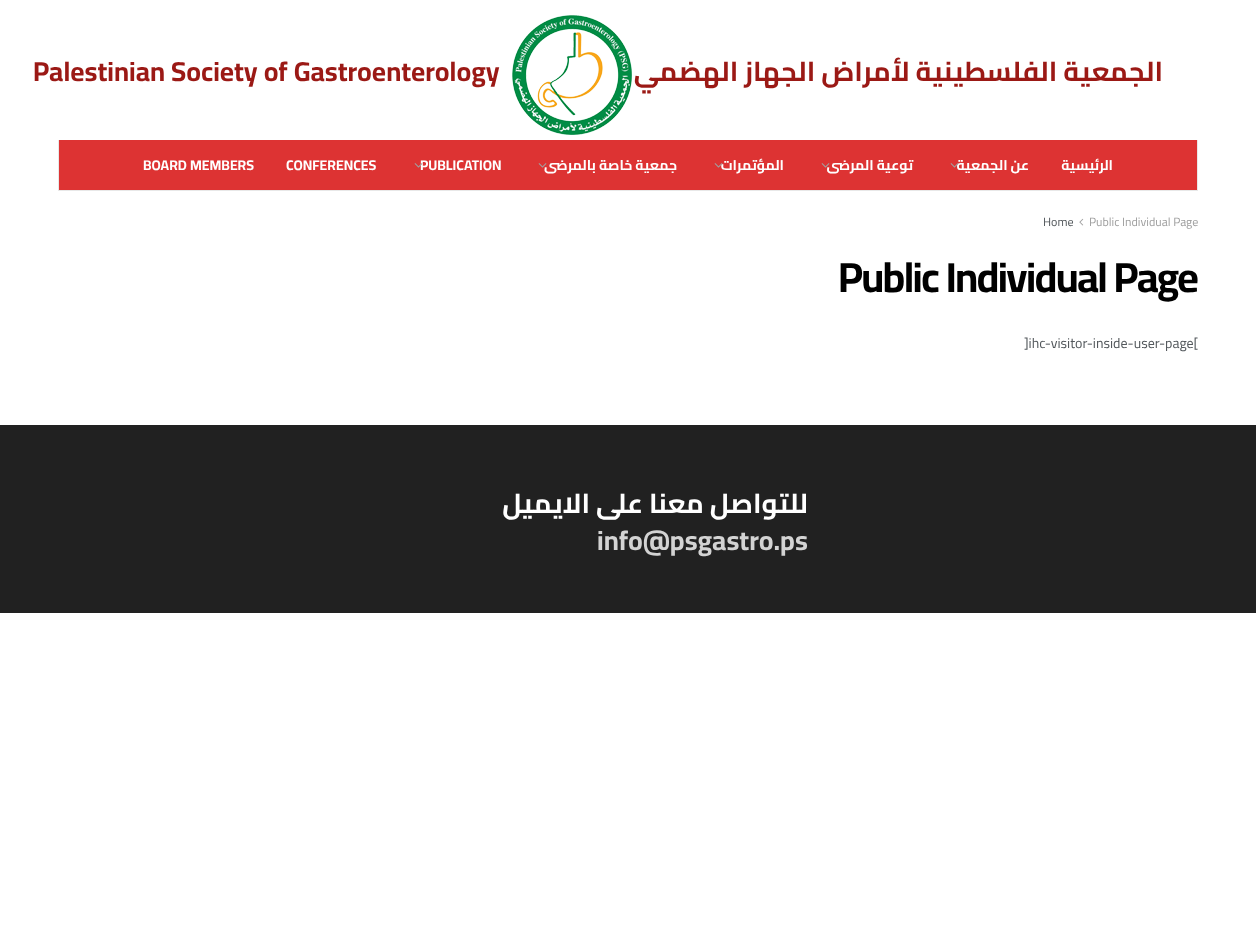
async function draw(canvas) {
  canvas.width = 1256;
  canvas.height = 935;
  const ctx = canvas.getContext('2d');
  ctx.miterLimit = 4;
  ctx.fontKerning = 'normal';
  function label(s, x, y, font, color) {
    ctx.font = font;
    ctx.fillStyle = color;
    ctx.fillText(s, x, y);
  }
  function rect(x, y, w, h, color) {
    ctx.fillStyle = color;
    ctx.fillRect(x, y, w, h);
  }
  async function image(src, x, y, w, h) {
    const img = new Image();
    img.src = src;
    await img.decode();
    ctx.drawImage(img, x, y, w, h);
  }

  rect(0, 0, 1256, 935, '#fff');
  label('Palestinian Society of Gastroenterology ', 33, 81, 'bold 27.3px Cairo', '#9b1915');
  await image('assets/img1.png', 512, 15, 120, 120);
  ctx.direction = 'rtl';
  label('الجمعية الفلسطينية لأمراض الجهاز الهضمي', 1163, 81, 'bold 27.3px Cairo', '#9b1915');
  rect(59, 140, 1138, 50, '#d33');
  rect(1197, 140, 1, 51, '#e8e8e8');
  rect(58, 190, 1140, 1, '#e8e8e8');
  rect(58, 140, 1, 51, '#e8e8e8');
  ctx.direction = 'ltr';
  label('BOARD MEMBERS', 143, 170, 'bold 14px Cairo', '#fff');
  label('CONFERENCES', 286, 170, 'bold 14px Cairo', '#fff');
  label('PUBLICATION', 420, 170, 'bold 14px Cairo', '#fff');
  await image('assets/img2.png', 414, 163, 9, 5);
  ctx.direction = 'rtl';
  label('جمعية خاصة بالمرضى', 677, 170, 'bold 14px Cairo', '#fff');
  await image('assets/img3.png', 538, 163, 9, 5);
  label('المؤتمرات', 784, 170, 'bold 14px Cairo', '#fff');
  await image('assets/img4.png', 714, 163, 9, 5);
  label('توعية المرضى', 913, 170, 'bold 14px Cairo', '#fff');
  await image('assets/img5.png', 821, 163, 9, 5);
  label('عن الجمعية', 1029, 170, 'bold 14px Cairo', '#fff');
  await image('assets/img6.png', 950, 163, 9, 5);
  label('الرئيسية', 1113, 170, 'bold 14px Cairo', '#fff');
  ctx.direction = 'ltr';
  label('Home', 1043, 226, '12px Cairo', '#53585c');
  await image('assets/img7.png', 1079, 218, 5, 8);
  label('Public Individual Page', 1089, 226, '12px Cairo', '#a0a0a0');
  ctx.letterSpacing = '-1.7px';
  label('Public Individual Page', 838, 292, 'bold 42px Cairo', '#000');
  ctx.letterSpacing = '0px';
  label(']ihc-visitor-inside-user-page[', 1024, 348, '14px Cairo', '#53585c');
  rect(0, 425, 1256, 188, '#212121');
  ctx.direction = 'rtl';
  label('للتواصل معنا على الايميل', 808, 513, 'bold 27.3px Cairo', '#fff');
  ctx.direction = 'ltr';
  label('info@psgastro.ps', 597, 550, 'bold 27.3px Cairo', '#d3d3d3');
}

draw(document.querySelector('canvas'));
